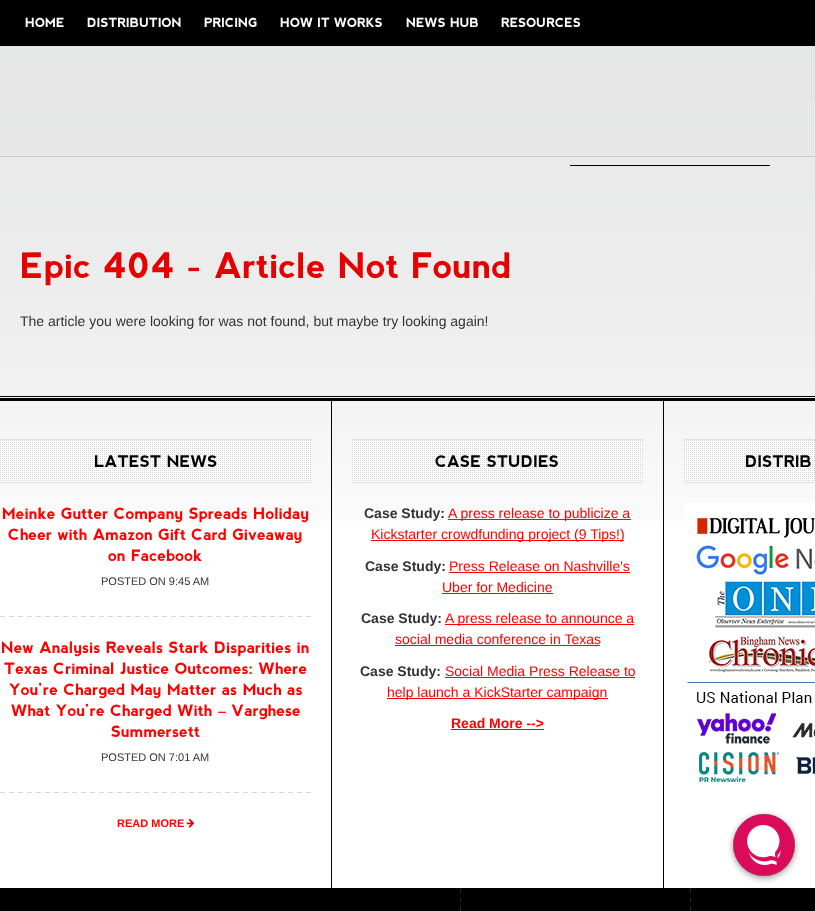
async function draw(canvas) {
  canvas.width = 815;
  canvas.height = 911;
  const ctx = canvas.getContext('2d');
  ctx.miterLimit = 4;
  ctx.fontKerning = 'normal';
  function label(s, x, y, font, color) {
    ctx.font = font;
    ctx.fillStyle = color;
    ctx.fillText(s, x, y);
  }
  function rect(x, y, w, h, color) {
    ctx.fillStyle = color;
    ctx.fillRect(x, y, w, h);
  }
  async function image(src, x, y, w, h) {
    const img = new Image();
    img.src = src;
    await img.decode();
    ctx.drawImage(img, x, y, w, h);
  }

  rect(0, 0, 815, 911, '#fff');
  await image('assets/img1.png', 0, 46, 815, 475);
  rect(0, 0, 815, 46, '#000');
  label('HOME', 25, 27, 'bold 12.5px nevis', '#fff');
  label('DISTRIBUTION', 87, 27, 'bold 12.5px nevis', '#fff');
  label('PRICING', 204, 27, 'bold 12.5px nevis', '#fff');
  label('HOW IT WORKS', 280, 27, 'bold 12.5px nevis', '#fff');
  label('NEWS HUB', 406, 27, 'bold 12.5px nevis', '#fff');
  label('RESOURCES', 501, 27, 'bold 12.5px nevis', '#fff');
  rect(570, 165, 200, 1, '#000');
  label('Epic 404 - Article Not Found', 20, 278, 'bold 35px nevis', '#e50101');
  label('The article you were looking for was not found, but maybe try looking again!', 20, 326, '14px Liberation Sans', '#333');
  await image('assets/img2.png', 0, 396, 815, 5);
  rect(331, 399, 1, 489, '#030303');
  await image('assets/img3.png', 0, 440, 311, 42);
  rect(0, 439, 311, 1, '#dfdfdf');
  rect(0, 482, 311, 1, '#dfdfdf');
  label('LATEST NEWS', 94, 467, 'bold 16px nevis', '#010101');
  await image('assets/img4.png', 0, 616, 311, 1);
  label('Meinke Gutter Company Spreads Holiday', 2, 519, 'bold 15.75px nevis', '#f00');
  label('Cheer with Amazon Gift Card Giveaway', 8, 540, 'bold 15.75px nevis', '#f00');
  label('on Facebook', 108, 561, 'bold 15.75px nevis', '#f00');
  label('POSTED ON 9:45 AM', 101, 585, '11px Liberation Sans', '#333');
  await image('assets/img4.png', 0, 792, 311, 1);
  label('New Analysis Reveals Stark Disparities in', 1, 653, 'bold 15.75px nevis', '#f00');
  label('Texas Criminal Justice Outcomes: Where', 4, 674, 'bold 15.75px nevis', '#f00');
  label('You’re Charged May Matter as Much as', 9, 695, 'bold 15.75px nevis', '#f00');
  label('What You’re Charged With – Varghese', 11, 716, 'bold 15.75px nevis', '#f00');
  label('Summersett', 111, 737, 'bold 15.75px nevis', '#f00');
  label('POSTED ON 7:01 AM', 101, 761, '11px Liberation Sans', '#333');
  label('READ MORE', 117, 827, 'bold 11px Liberation Sans', '#f00');
  await image('assets/img5.png', 186, 819, 8, 9);
  rect(663, 399, 1, 489, '#030303');
  await image('assets/img6.png', 352, 440, 291, 42);
  rect(352, 439, 291, 1, '#dfdfdf');
  rect(352, 482, 291, 1, '#dfdfdf');
  label('CASE STUDIES', 435, 467, 'bold 16px nevis', '#010101');
  label('Case Study:', 364, 518, 'bold 14px Liberation Sans', '#333');
  rect(448, 519, 183, 1, '#f00');
  label('A press release to publicize a', 448, 518, '14px Liberation Sans', '#f00');
  rect(371, 540, 253, 1, '#f00');
  label('Kickstarter crowdfunding project (9 Tips!)', 371, 539, '14px Liberation Sans', '#f00');
  label('Case Study:', 365, 571, 'bold 14px Liberation Sans', '#333');
  label('Press Release on Nashville\'s', 449, 571, '14px Liberation Sans', '#f00');
  rect(449, 572, 181, 1, '#f00');
  label('Uber for Medicine', 442, 592, '14px Liberation Sans', '#f00');
  rect(442, 593, 111, 1, '#f00');
  label('Case Study:', 361, 623, 'bold 14px Liberation Sans', '#333');
  rect(445, 624, 189, 1, '#f00');
  label('A press release to announce a', 445, 623, '14px Liberation Sans', '#f00');
  label('social media conference in Texas', 395, 644, '14px Liberation Sans', '#f00');
  rect(395, 645, 205, 1, '#f00');
  label('Case Study:', 360, 676, 'bold 14px Liberation Sans', '#333');
  label('Social Media Press Release to', 445, 676, '14px Liberation Sans', '#f00');
  rect(445, 677, 190, 1, '#f00');
  rect(387, 698, 221, 1, '#f00');
  label('help launch a KickStarter campaign', 387, 697, '14px Liberation Sans', '#f00');
  label('Read More -->', 451, 728, 'bold 14px Liberation Sans', '#f00');
  rect(451, 729, 93, 1, '#f00');
  await image('assets/img7.png', 684, 440, 131, 42);
  rect(684, 439, 131, 1, '#dfdfdf');
  rect(684, 482, 131, 1, '#dfdfdf');
  label('DISTRIB', 745, 467, 'bold 16px nevis', '#010101');
  await image('assets/img8.png', 684, 503, 131, 279);
  ctx.fillStyle = '#00000066';
  ctx.filter = 'blur(3px)';
  ctx.beginPath();
  ctx.roundRect(733, 816, 62, 62, 31);
  ctx.fill();
  ctx.filter = 'none';
  ctx.fillStyle = '#db0a5b';
  ctx.beginPath();
  ctx.arc(764, 845, 31, 0, 2 * Math.PI);
  ctx.fill();
  await image('assets/img9.png', 747, 825, 34, 40);
  ctx.beginPath();
  ctx.arc(764, 845, 30.5, 0, 2 * Math.PI);
  ctx.strokeStyle = '#66666666';
  ctx.stroke();
  rect(0, 888, 815, 23, '#010101');
  await image('assets/img10.png', 460, 888, 1, 23);
  await image('assets/img10.png', 690, 888, 1, 23);
}

draw(document.querySelector('canvas'));
